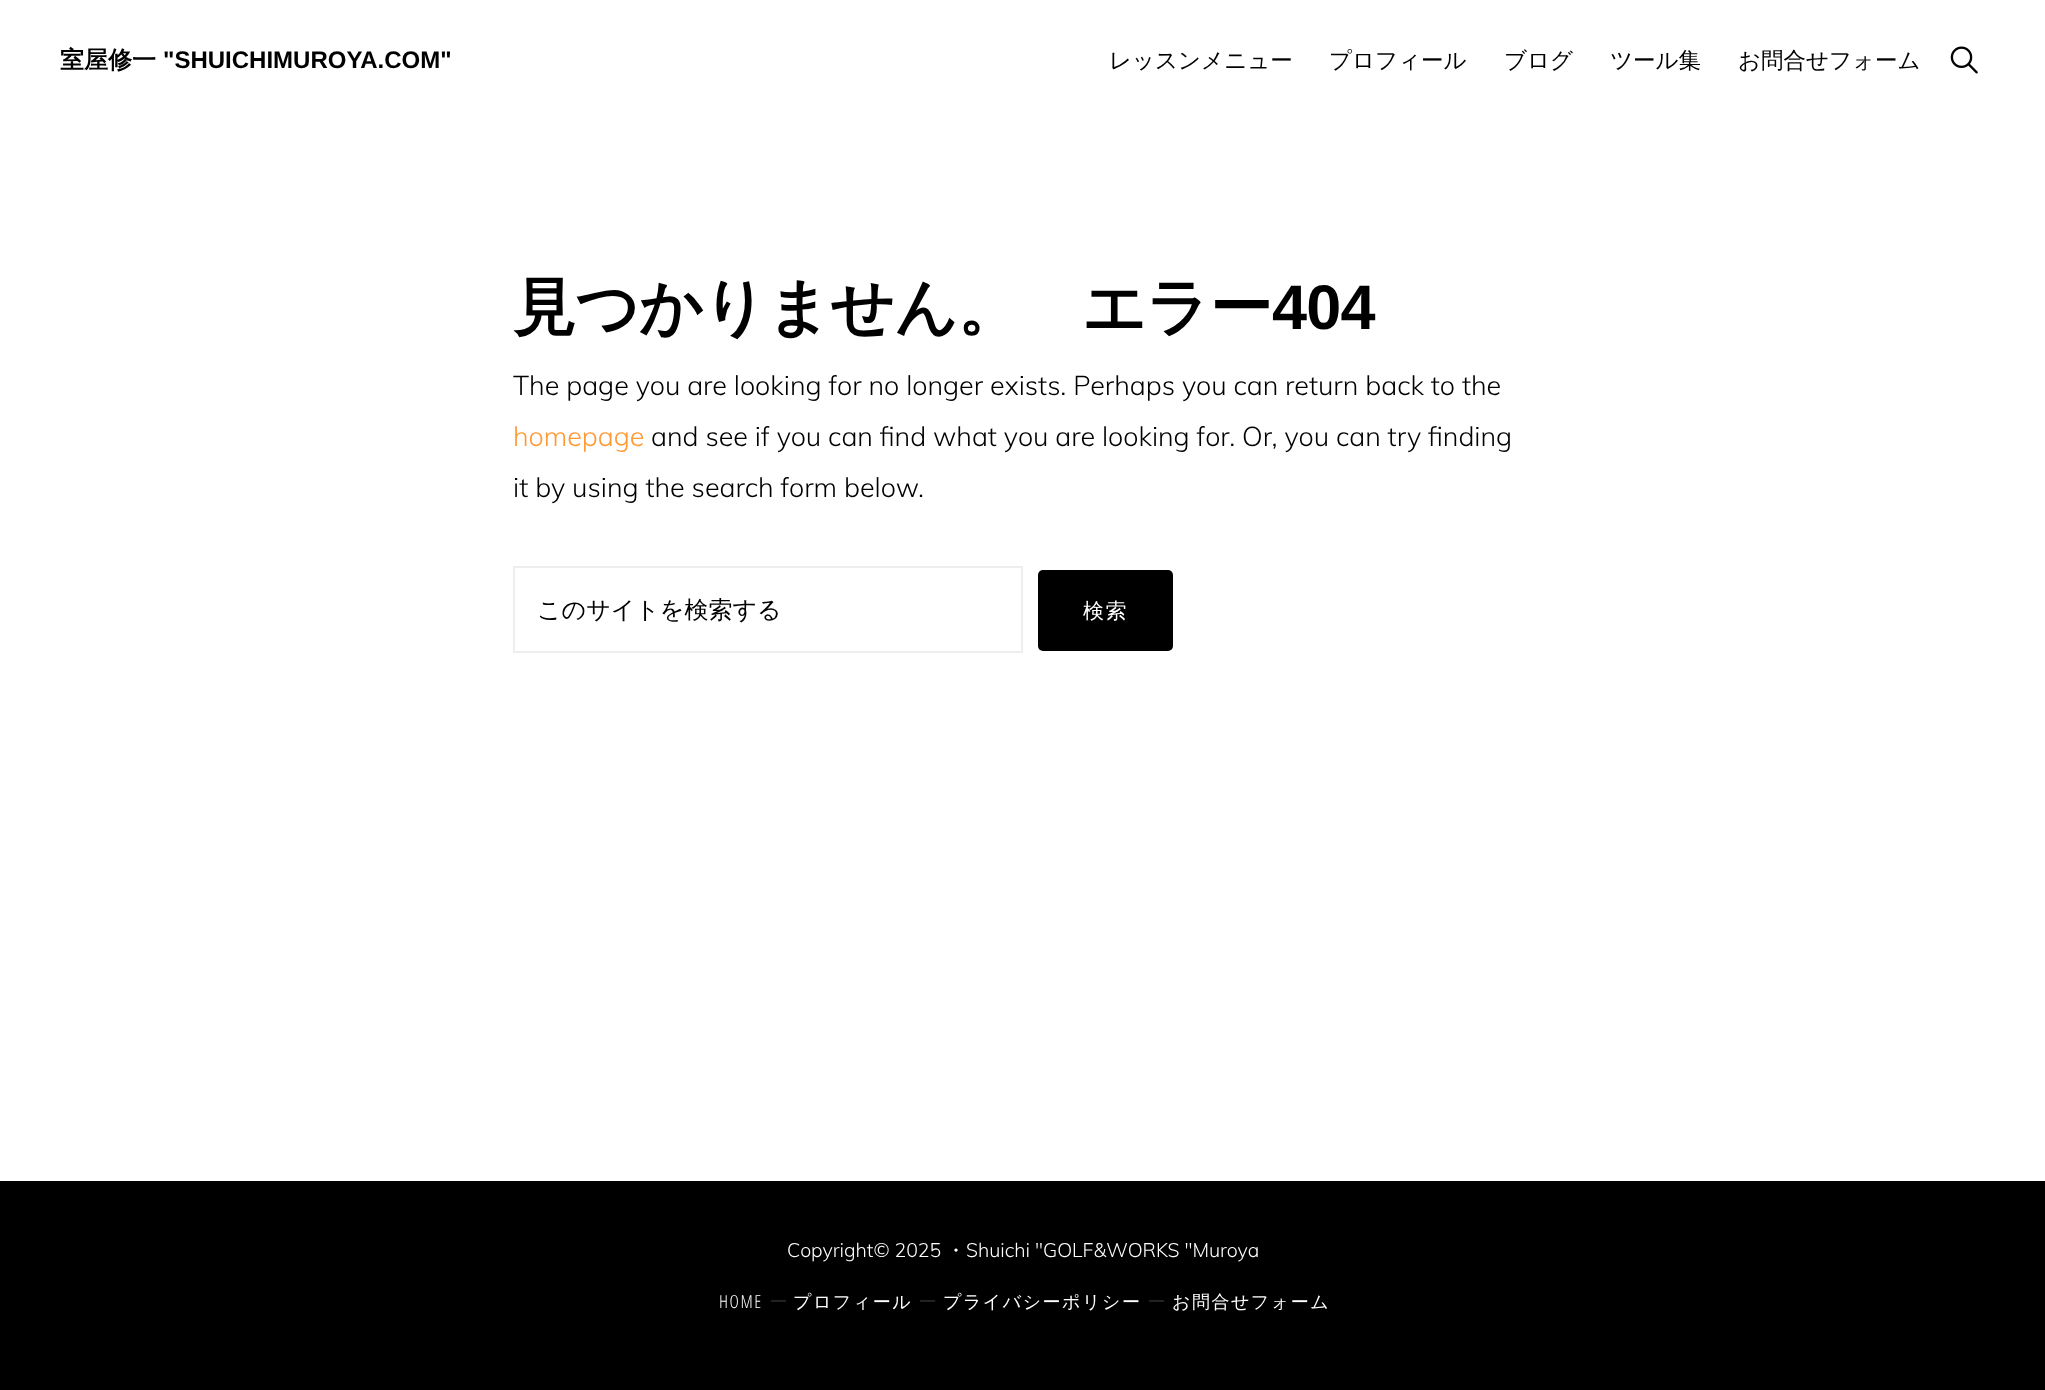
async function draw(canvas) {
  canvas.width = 2045;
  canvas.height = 1390;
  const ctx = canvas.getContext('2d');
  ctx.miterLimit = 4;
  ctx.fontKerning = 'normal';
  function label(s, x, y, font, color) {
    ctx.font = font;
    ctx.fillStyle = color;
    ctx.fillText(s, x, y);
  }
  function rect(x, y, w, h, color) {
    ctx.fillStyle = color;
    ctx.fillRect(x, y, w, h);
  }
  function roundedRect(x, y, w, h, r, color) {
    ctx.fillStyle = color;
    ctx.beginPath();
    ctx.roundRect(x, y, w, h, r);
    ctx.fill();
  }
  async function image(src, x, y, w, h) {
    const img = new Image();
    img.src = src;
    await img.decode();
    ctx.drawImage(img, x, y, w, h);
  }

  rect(0, 0, 2045, 1390, '#fff');
  label('室屋修一', 60, 68, 'bold 24px WenQuanYi Zen Hei', '#000');
  label('"SHUICHIMUROYA.COM"', 163, 68, 'bold 24px Liberation Sans', '#000');
  label('レッスンメニュー', 1109, 68, '500 22.5px WenQuanYi Zen Hei', '#000');
  label('プロフィール', 1329, 68, '500 22.5px WenQuanYi Zen Hei', '#000');
  label('ブログ', 1504, 68, '500 22.5px WenQuanYi Zen Hei', '#000');
  label('ツール集', 1610, 68, '500 22.5px WenQuanYi Zen Hei', '#000');
  label('お問合せフォーム', 1738, 68, '500 22.5px WenQuanYi Zen Hei', '#000');
  await image('assets/img1.png', 1950, 46, 28, 28);
  ctx.letterSpacing = '-0.75px';
  label('見つかりません。　エラー', 513, 329, 'bold 63px WenQuanYi Zen Hei', '#000');
  label('404', 1272, 329, 'bold 63px Liberation Sans', '#000');
  ctx.letterSpacing = '0px';
  label('The page you are looking for no longer exists. Perhaps you can return back to the', 513, 395, '300 27px Muli', '#000');
  label('homepage', 513, 446, '300 27px Muli', '#f93');
  label('and see if you can find what you are looking for. Or, you can try finding', 651, 446, '300 27px Muli', '#000');
  label('it by using the search form below.', 513, 497, '300 27px Muli', '#000');
  ctx.strokeStyle = '#eee';
  ctx.lineWidth = 2;
  ctx.strokeRect(514, 567, 508, 85);
  label('このサイトを検索する', 537, 618, '500 24px WenQuanYi Zen Hei', '#000');
  roundedRect(1038, 570, 135, 81, 5, '#000');
  ctx.letterSpacing = '1.5px';
  label('検索', 1083, 618, '500 21px WenQuanYi Zen Hei', '#fff');
  rect(0, 1181, 2045, 209, '#000');
  ctx.letterSpacing = '0px';
  label('Copyright© 2025', 787, 1257, '300 19.5px Muli', '#fff');
  label('・', 946, 1257, '500 19.5px WenQuanYi Zen Hei', '#fff');
  label('Shuichi "GOLF&WORKS "Muroya', 966, 1257, '300 19.5px Muli', '#fff');
  ctx.letterSpacing = '1.5px';
  label('HOME', 719, 1308, '300 18px Open Sans Condensed', '#fff');
  ctx.letterSpacing = '0px';
  label('—', 771, 1305, '300 15px Muli', '#666');
  ctx.letterSpacing = '1.5px';
  label('プロフィール', 793, 1308, '500 18px WenQuanYi Zen Hei', '#fff');
  ctx.letterSpacing = '0px';
  label('—', 920, 1305, '300 15px Muli', '#666');
  ctx.letterSpacing = '1.5px';
  label('プライバシーポリシー', 943, 1308, '500 18px WenQuanYi Zen Hei', '#fff');
  ctx.letterSpacing = '0px';
  label('—', 1149, 1305, '300 15px Muli', '#666');
  ctx.letterSpacing = '1.5px';
  label('お問合せフォーム', 1172, 1308, '500 18px WenQuanYi Zen Hei', '#fff');
}

draw(document.querySelector('canvas'));
